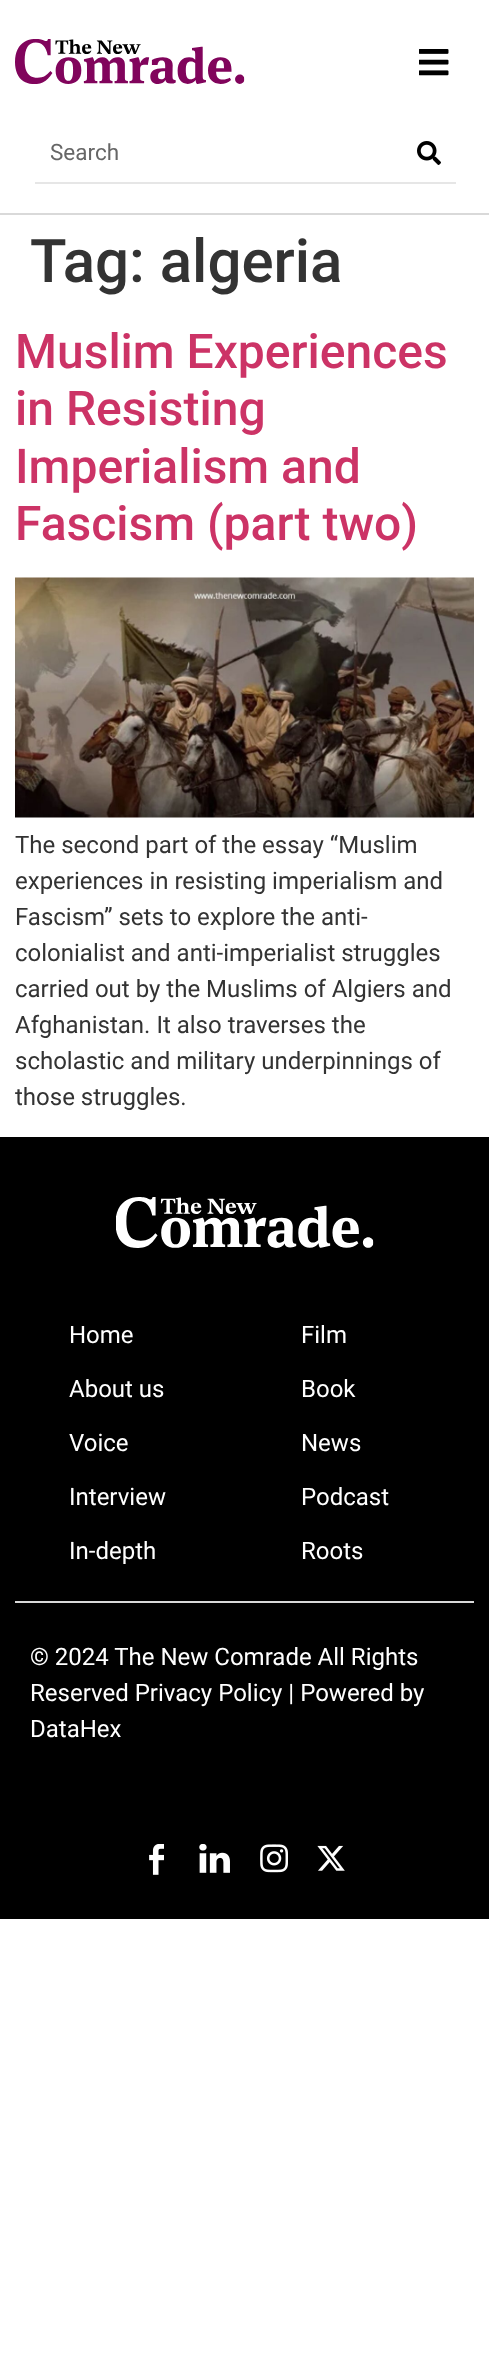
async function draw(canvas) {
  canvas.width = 489;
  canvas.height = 2353;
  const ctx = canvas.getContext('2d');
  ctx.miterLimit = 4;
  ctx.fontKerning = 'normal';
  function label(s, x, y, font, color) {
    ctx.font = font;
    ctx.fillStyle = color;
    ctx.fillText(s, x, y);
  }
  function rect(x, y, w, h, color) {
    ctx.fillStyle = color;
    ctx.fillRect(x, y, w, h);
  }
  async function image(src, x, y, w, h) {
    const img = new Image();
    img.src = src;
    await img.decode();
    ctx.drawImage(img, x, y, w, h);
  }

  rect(0, 0, 489, 2353, '#fff');
  rect(0, 213, 489, 2, '#d9d9d9');
  await image('assets/img1.png', 15, 39, 230, 45);
  await image('assets/img2.png', 419, 49, 30, 27);
  rect(35, 182, 421, 2, '#e6e6e6');
  label('Search', 50, 160, '22.5px Roboto', '#666');
  await image('assets/img3.png', 417, 141, 24, 24);
  label('Tag: algeria', 30, 282, '500 60px Roboto', '#333');
  label('Muslim Experiences', 15, 368, '500 48px Roboto', '#c36');
  label('in Resisting', 15, 425, '500 48px Roboto', '#c36');
  label('Imperialism and', 15, 483, '500 48px Roboto', '#c36');
  label('Fascism (part two)', 15, 540, '500 48px Roboto', '#c36');
  await image('assets/img4.png', 15, 577, 459, 241);
  label('The second part of the essay “Muslim', 15, 853, '24px Roboto', '#333');
  label('experiences in resisting imperialism and', 15, 889, '24px Roboto', '#333');
  label('Fascism” sets to explore the anti-', 15, 925, '24px Roboto', '#333');
  label('colonialist and anti-imperialist struggles', 15, 961, '24px Roboto', '#333');
  label('carried out by the Muslims of Algiers and', 15, 997, '24px Roboto', '#333');
  label('Afghanistan. It also traverses the', 15, 1033, '24px Roboto', '#333');
  label('scholastic and military underpinnings of', 15, 1069, '24px Roboto', '#333');
  label('those struggles.', 15, 1105, '24px Roboto', '#333');
  rect(0, 1137, 489, 782, '#000');
  await image('assets/img5.png', 116, 1197, 258, 51);
  label('Home', 69, 1343, '24px Roboto', '#fff');
  label('About us', 69, 1397, '24px Roboto', '#fff');
  label('Voice', 69, 1451, '24px Roboto', '#fff');
  label('Interview', 69, 1505, '24px Roboto', '#fff');
  label('In-depth', 69, 1559, '24px Roboto', '#fff');
  label('Film', 301, 1343, '24px Roboto', '#fff');
  label('Book', 301, 1397, '24px Roboto', '#fff');
  label('News', 301, 1451, '24px Roboto', '#fff');
  label('Podcast', 301, 1505, '24px Roboto', '#fff');
  label('Roots', 301, 1559, '24px Roboto', '#fff');
  rect(15, 1601, 459, 2, '#d9d9d9');
  label('© 2024 The New Comrade All Rights', 30, 1665, '24px Roboto', '#fff');
  label('Reserved Privacy Policy | Powered by', 30, 1701, '24px Roboto', '#fff');
  label('DataHex', 30, 1737, '24px Roboto', '#fff');
  await image('assets/img6.png', 149, 1844, 15, 31);
  await image('assets/img7.png', 199, 1844, 31, 29);
  await image('assets/img8.png', 260, 1844, 28, 29);
  await image('assets/img9.png', 317, 1845, 28, 26);
}

draw(document.querySelector('canvas'));
